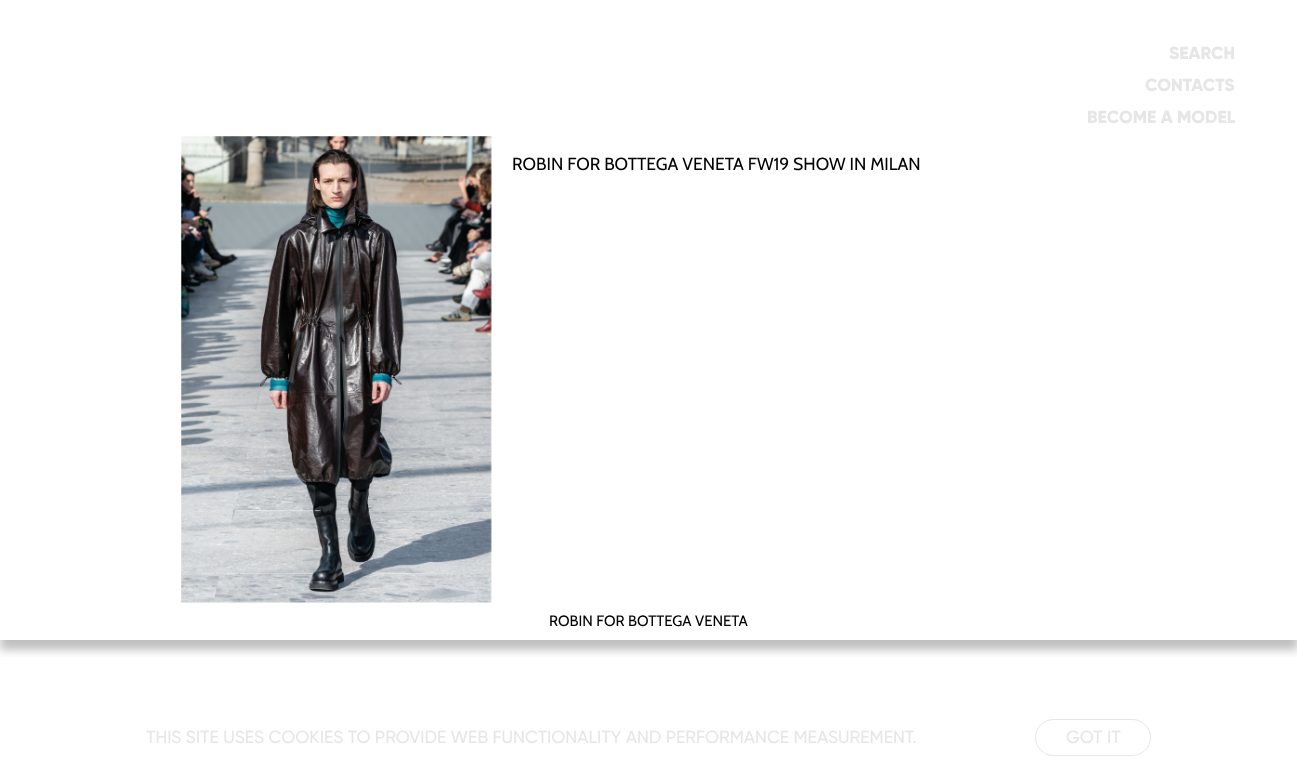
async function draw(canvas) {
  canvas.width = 1297;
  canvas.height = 776;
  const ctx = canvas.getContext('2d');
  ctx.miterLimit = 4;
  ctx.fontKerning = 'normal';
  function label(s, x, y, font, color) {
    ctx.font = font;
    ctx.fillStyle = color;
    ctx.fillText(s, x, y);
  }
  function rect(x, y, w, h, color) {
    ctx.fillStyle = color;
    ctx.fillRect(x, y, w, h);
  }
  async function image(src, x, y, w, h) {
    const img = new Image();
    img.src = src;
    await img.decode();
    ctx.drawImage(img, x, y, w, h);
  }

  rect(0, 0, 1297, 776, '#fff');
  label('SEARCH', 1169, 59, '800 17.5px Gilroy', '#e6e6e6');
  label('CONTACTS', 1145, 91, '800 17.5px Gilroy', '#e6e6e6');
  label('BECOME A MODEL', 1087, 123, '800 17.5px Gilroy', '#e6e6e6');
  ctx.save();
  ctx.beginPath();
  ctx.rect(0, 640, 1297, 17);
  ctx.clip();
  ctx.fillStyle = '#00000040';
  ctx.filter = 'blur(5px)';
  ctx.beginPath();
  ctx.rect(0, 613, 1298, 37);
  ctx.fill();
  ctx.filter = 'none';
  ctx.restore();
  await image('assets/img1.png', 181, 136, 311, 467);
  label('ROBIN FOR BOTTEGA VENETA FW19 SHOW IN MILAN', 512, 170, '17.5px Cabin', '#000');
  label('ROBIN FOR BOTTEGA VENETA', 549, 626, '15px Cabin', '#000');
  label('THIS SITE USES COOKIES TO PROVIDE WEB FUNCTIONALITY AND PERFORMANCE MEASUREMENT.', 146, 743, '500 17.5px Gilroy', '#e6e6e6');
  ctx.beginPath();
  ctx.roundRect(1035.5, 719.5, 115, 36, 18);
  ctx.strokeStyle = '#e6e6e6';
  ctx.stroke();
  label('GOT IT', 1066, 743, '500 17.5px Gilroy', '#e6e6e6');
}

draw(document.querySelector('canvas'));
